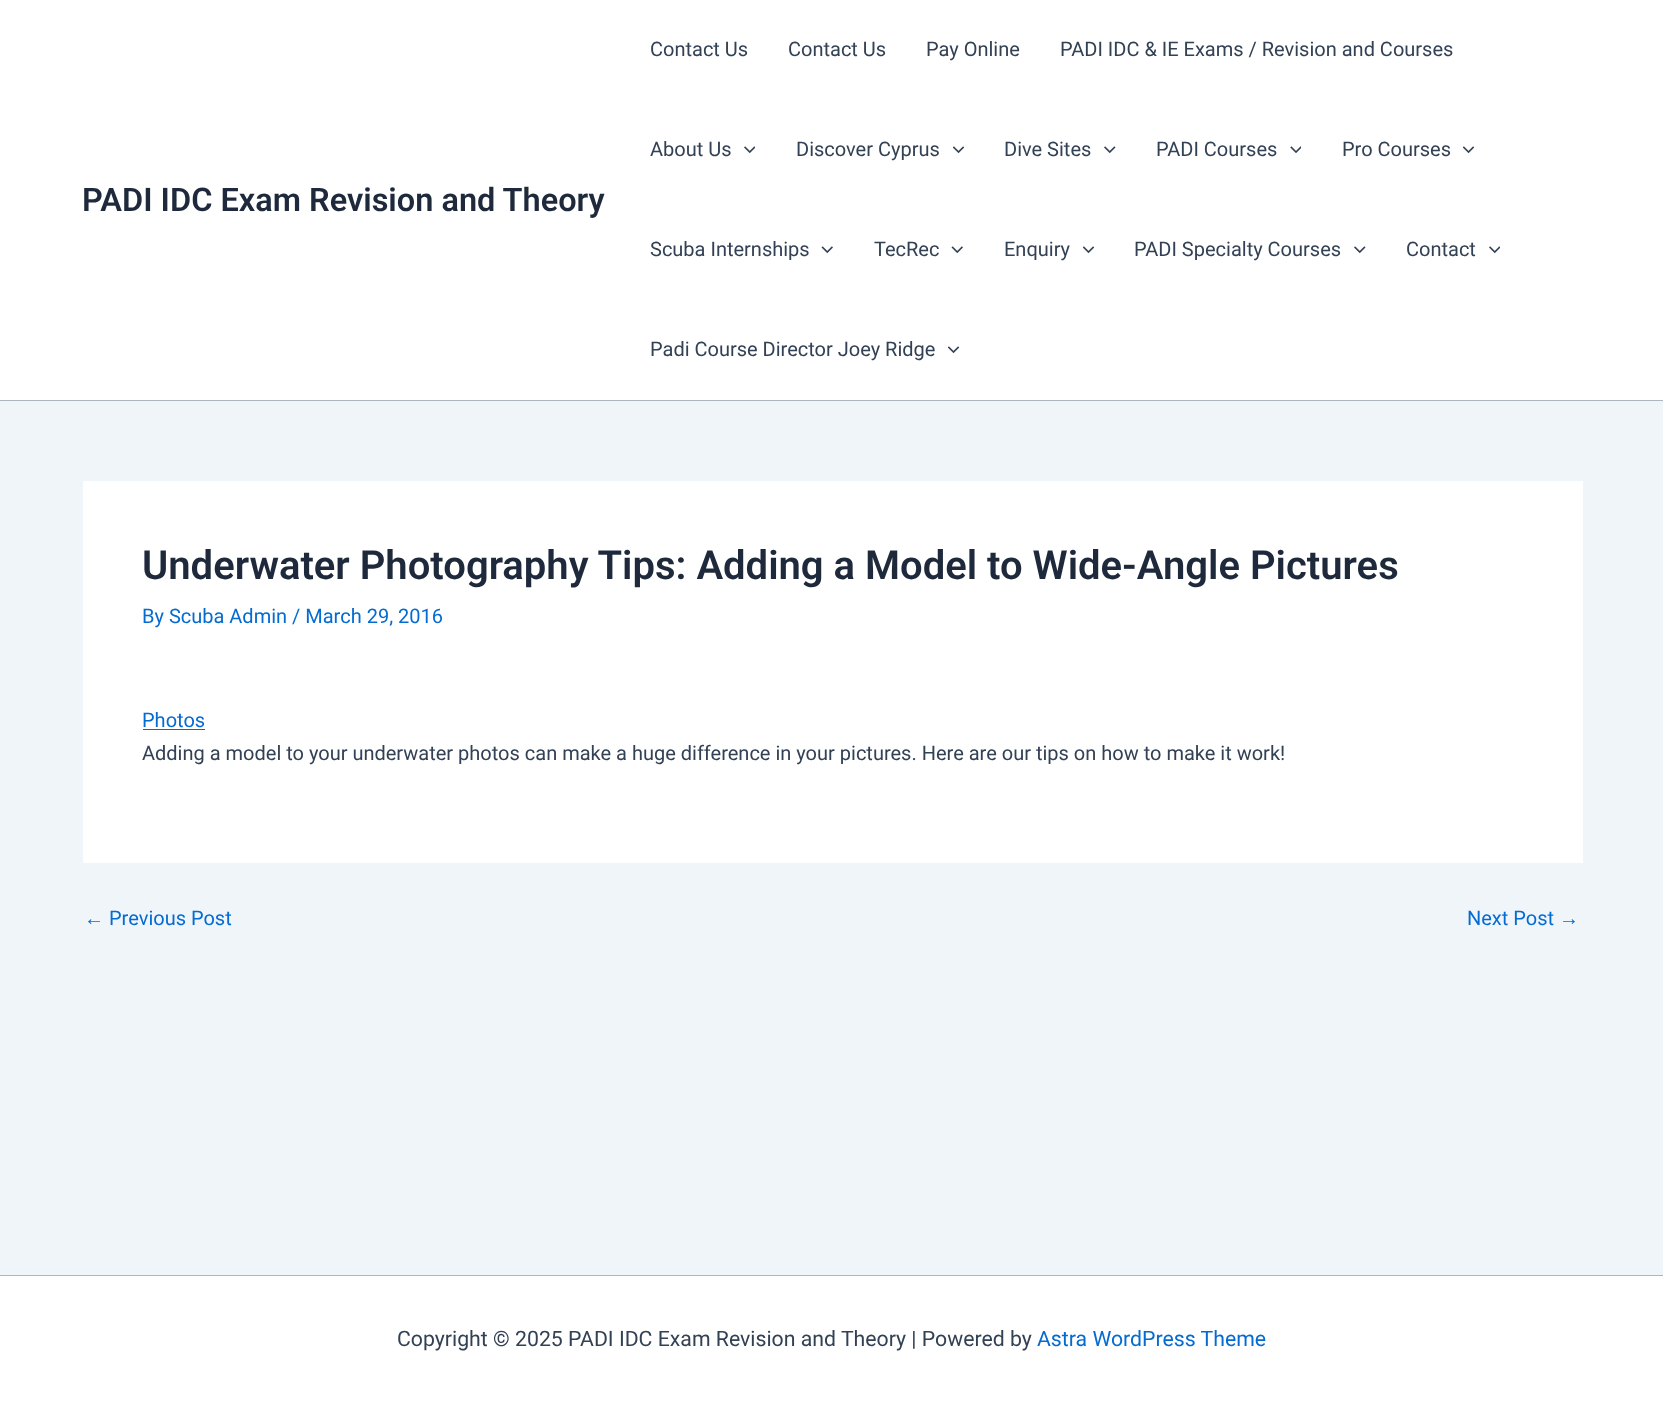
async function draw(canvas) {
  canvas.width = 1663;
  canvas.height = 1401;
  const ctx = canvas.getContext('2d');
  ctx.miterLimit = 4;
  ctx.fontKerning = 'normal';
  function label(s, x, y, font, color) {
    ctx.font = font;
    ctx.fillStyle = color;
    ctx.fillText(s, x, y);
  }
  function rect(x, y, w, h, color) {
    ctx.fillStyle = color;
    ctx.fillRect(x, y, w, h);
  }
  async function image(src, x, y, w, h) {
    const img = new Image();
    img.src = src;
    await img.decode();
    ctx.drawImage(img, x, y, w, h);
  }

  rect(0, 0, 1663, 1401, '#f0f5fa');
  rect(0, 0, 1663, 400, '#fff');
  rect(0, 400, 1663, 1, '#adb6be');
  label('PADI IDC Exam Revision and Theory', 82, 211, '600 32.5px Roboto', '#1e293b');
  label('Contact Us', 650, 56, '20px Roboto', '#334155');
  label('Contact Us', 788, 56, '20px Roboto', '#334155');
  label('Pay Online', 926, 56, '20px Roboto', '#334155');
  label('PADI IDC & IE Exams / Revision and Courses', 1060, 56, '20px Roboto', '#334155');
  label('About Us', 650, 156, '20px Roboto', '#334155');
  await image('assets/img1.png', 744, 146, 11, 8);
  label('Discover Cyprus', 796, 156, '20px Roboto', '#334155');
  await image('assets/img2.png', 953, 146, 11, 8);
  label('Dive Sites', 1004, 156, '20px Roboto', '#334155');
  await image('assets/img3.png', 1104, 146, 12, 8);
  label('PADI Courses', 1156, 156, '20px Roboto', '#334155');
  await image('assets/img4.png', 1290, 146, 11, 8);
  label('Pro Courses', 1342, 156, '20px Roboto', '#334155');
  await image('assets/img5.png', 1463, 146, 12, 8);
  label('Scuba Internships', 650, 256, '20px Roboto', '#334155');
  await image('assets/img6.png', 821, 246, 12, 8);
  label('TecRec', 874, 256, '20px Roboto', '#334155');
  await image('assets/img6.png', 951, 246, 12, 8);
  label('Enquiry', 1004, 256, '20px Roboto', '#334155');
  await image('assets/img2.png', 1083, 246, 11, 8);
  label('PADI Specialty Courses', 1134, 256, '20px Roboto', '#334155');
  await image('assets/img3.png', 1354, 246, 12, 8);
  label('Contact', 1406, 256, '20px Roboto', '#334155');
  await image('assets/img1.png', 1489, 246, 11, 8);
  label('Padi Course Director Joey Ridge', 650, 356, '20px Roboto', '#334155');
  await image('assets/img5.png', 948, 346, 12, 8);
  rect(83, 481, 1500, 382, '#fff');
  label('Underwater Photography Tips: Adding a Model to Wide-Angle Pictures', 142, 579, '600 40px Roboto', '#1e293b');
  label('By Scuba Admin / March 29, 2016', 142, 623, '20px Roboto', '#046bd2');
  label('Photos', 142, 727, '20px Roboto', '#046bd2');
  rect(143, 729, 62, 1, '#046bd2');
  label('Adding a model to your underwater photos can make a huge difference in your pictures. Here are our tips on how to make it work!', 142, 760, '20px Roboto', '#334155');
  label('←', 84, 925, '20px Liberation Sans', '#046bd2');
  label('Previous Post', 109, 925, '20px Roboto', '#046bd2');
  label('Next Post', 1467, 925, '20px Roboto', '#046bd2');
  label('→', 1559, 925, '20px Liberation Sans', '#046bd2');
  rect(0, 1276, 1663, 125, '#fff');
  rect(0, 1275, 1663, 1, '#adb6be');
  label('Copyright © 2025 PADI IDC Exam Revision and Theory | Powered by', 397, 1346, '21.25px Roboto', '#334155');
  label('Astra WordPress Theme', 1037, 1346, '21.25px Roboto', '#046bd2');
}

draw(document.querySelector('canvas'));
